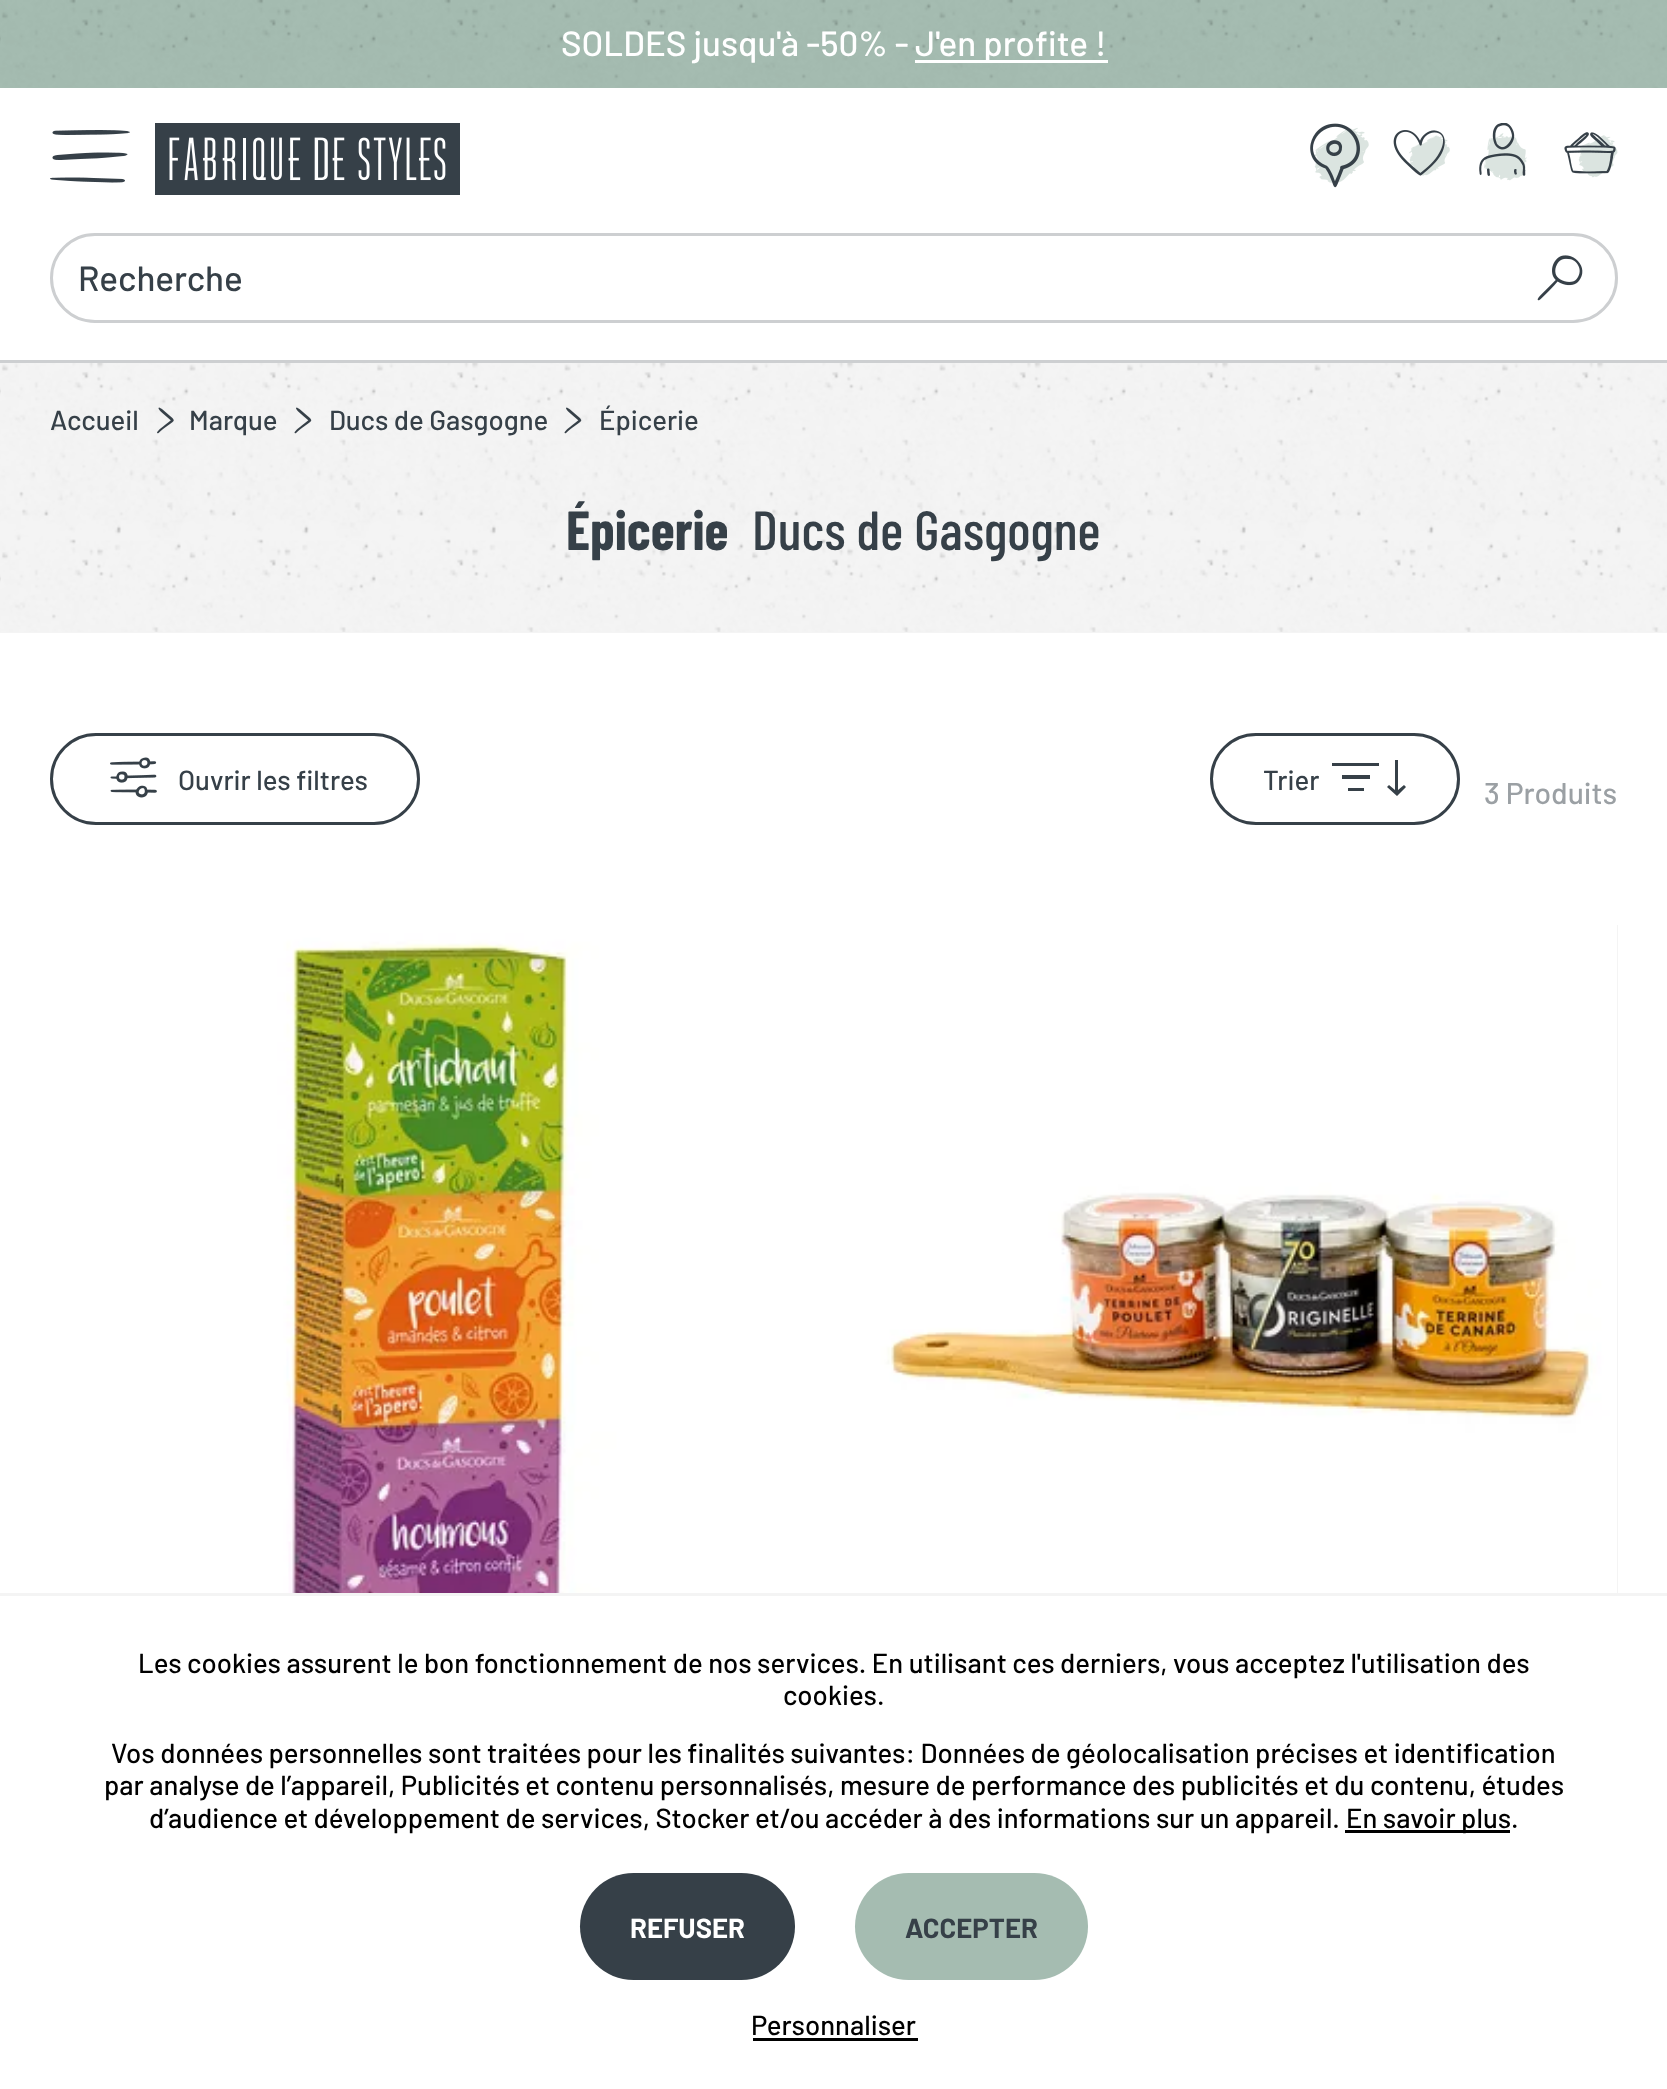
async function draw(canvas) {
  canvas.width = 1667;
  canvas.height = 2089;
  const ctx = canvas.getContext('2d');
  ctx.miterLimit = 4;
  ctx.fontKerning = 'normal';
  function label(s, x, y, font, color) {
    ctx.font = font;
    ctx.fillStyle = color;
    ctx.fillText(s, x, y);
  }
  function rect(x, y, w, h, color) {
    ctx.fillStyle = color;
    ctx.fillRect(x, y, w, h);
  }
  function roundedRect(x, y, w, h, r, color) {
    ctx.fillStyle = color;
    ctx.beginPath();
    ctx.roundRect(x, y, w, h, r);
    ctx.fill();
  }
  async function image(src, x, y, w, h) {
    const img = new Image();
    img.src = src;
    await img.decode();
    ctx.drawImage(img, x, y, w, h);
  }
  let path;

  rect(0, 0, 1667, 2089, '#fff');
  rect(0, 0, 1667, 88, '#a5bcb1');
  await image('assets/img1.png', 0, 0, 1667, 88);
  label('SOLDES jusqu\'à -50% -', 561, 56, '500 35px Barlow', '#fff');
  rect(915, 60, 193, 3, '#fff');
  label('J\'en profite !', 915, 56, '500 35px Barlow', '#fff');
  await image('assets/img2.png', 50, 130, 80, 53);
  await image('assets/img3.png', 155, 123, 305, 72);
  await image('assets/img4.png', 1310, 123, 59, 65);
  await image('assets/img5.png', 1393, 130, 57, 46);
  await image('assets/img6.png', 1479, 123, 48, 58);
  await image('assets/img7.png', 1564, 132, 54, 46);
  rect(0, 360, 1667, 3, '#cdcfd1');
  ctx.beginPath();
  ctx.roundRect(51.5, 234.5, 1565, 87, 43.5);
  ctx.strokeStyle = '#cdcfd1';
  ctx.lineWidth = 3;
  ctx.stroke();
  label('Recherche', 78, 291, '500 35px Barlow', '#364048');
  await image('assets/img8.png', 1537, 255, 46, 46);
  rect(0, 363, 1667, 270, '#f4f4f4');
  await image('assets/img9.png', 0, 363, 1667, 269);
  label('Accueil', 50, 430, '500 27.5px Barlow', '#364048');
  await image('assets/img10.png', 157, 407, 17, 27);
  label('Marque', 189, 430, '500 27.5px Barlow', '#364048');
  await image('assets/img11.png', 294, 407, 18, 27);
  label('Ducs de Gasgogne', 329, 430, '500 27.5px Barlow', '#364048');
  await image('assets/img12.png', 564, 407, 18, 27);
  label('Épicerie', 599, 430, '500 27.5px Barlow', '#364048');
  label('Épicerie', 566, 550, 'bold 55px Barlow Condensed', '#364048');
  label('Ducs de Gasgogne', 752, 550, '500 55px Barlow Condensed', '#364048');
  ctx.beginPath();
  ctx.roundRect(51.5, 734.5, 367, 89, 44.5);
  ctx.strokeStyle = '#364048';
  ctx.stroke();
  await image('assets/img13.png', 110, 757, 47, 41);
  label('Ouvrir les filtres', 178, 790, '500 27.5px Barlow', '#364048');
  ctx.beginPath();
  ctx.roundRect(1211.5, 734.5, 247, 89, 44.5);
  ctx.stroke();
  label('Trier', 1263, 790, '500 27.5px Barlow', '#364048');
  path = new Path2D('M1332 763H1379V766H1332ZM1342 775H1370V779H1342ZM1348 788H1364V791H1348ZM1406 787L1404 785L1398 790V760H1395V790L1389 785L1387 787L1397 796Z');
  ctx.fill(path);
  label('3 Produits', 1484, 804, '500 30px Barlow', '#9ba0a4');
  await image('assets/img14.png', 50, 925, 760, 668);
  rect(1617, 925, 1, 668, '#f4f4f4');
  await image('assets/img15.png', 860, 925, 757, 668);
  rect(0, 1593, 1667, 3, '#f4f4f4');
  label('Les cookies assurent le bon fonctionnement de nos services. En utilisant ces derniers, vous acceptez l\'utilisation des', 138, 1673, '500 27.5px Barlow', '#000');
  label('cookies.', 783, 1705, '500 27.5px Barlow', '#000');
  label('Vos données personnelles sont traitées pour les finalités suivantes: Données de géolocalisation précises et identification', 111, 1763, '500 27.5px Barlow', '#000');
  label('par analyse de l’appareil, Publicités et contenu personnalisés, mesure de performance des publicités et du contenu, études', 104, 1795, '500 27.5px Barlow', '#000');
  label('d’audience et développement de services, Stocker et/ou accéder à des informations sur un appareil.', 149, 1828, '500 27.5px Barlow', '#000');
  rect(1345, 1830, 165, 3, '#000');
  label('En savoir plus.', 1346, 1828, '500 27.5px Barlow', '#000');
  roundedRect(580, 1873, 215, 107, 53.5, '#364048');
  label('REFUSER', 630, 1938, 'bold 27.5px Barlow', '#fff');
  roundedRect(855, 1873, 233, 107, 53.5, '#a5bcb1');
  label('ACCEPTER', 905, 1938, 'bold 27.5px Barlow', '#364048');
  label('Personnaliser', 751, 2035, '500 27.5px Barlow', '#000');
  rect(753, 2038, 165, 3, '#000');
}

draw(document.querySelector('canvas'));
